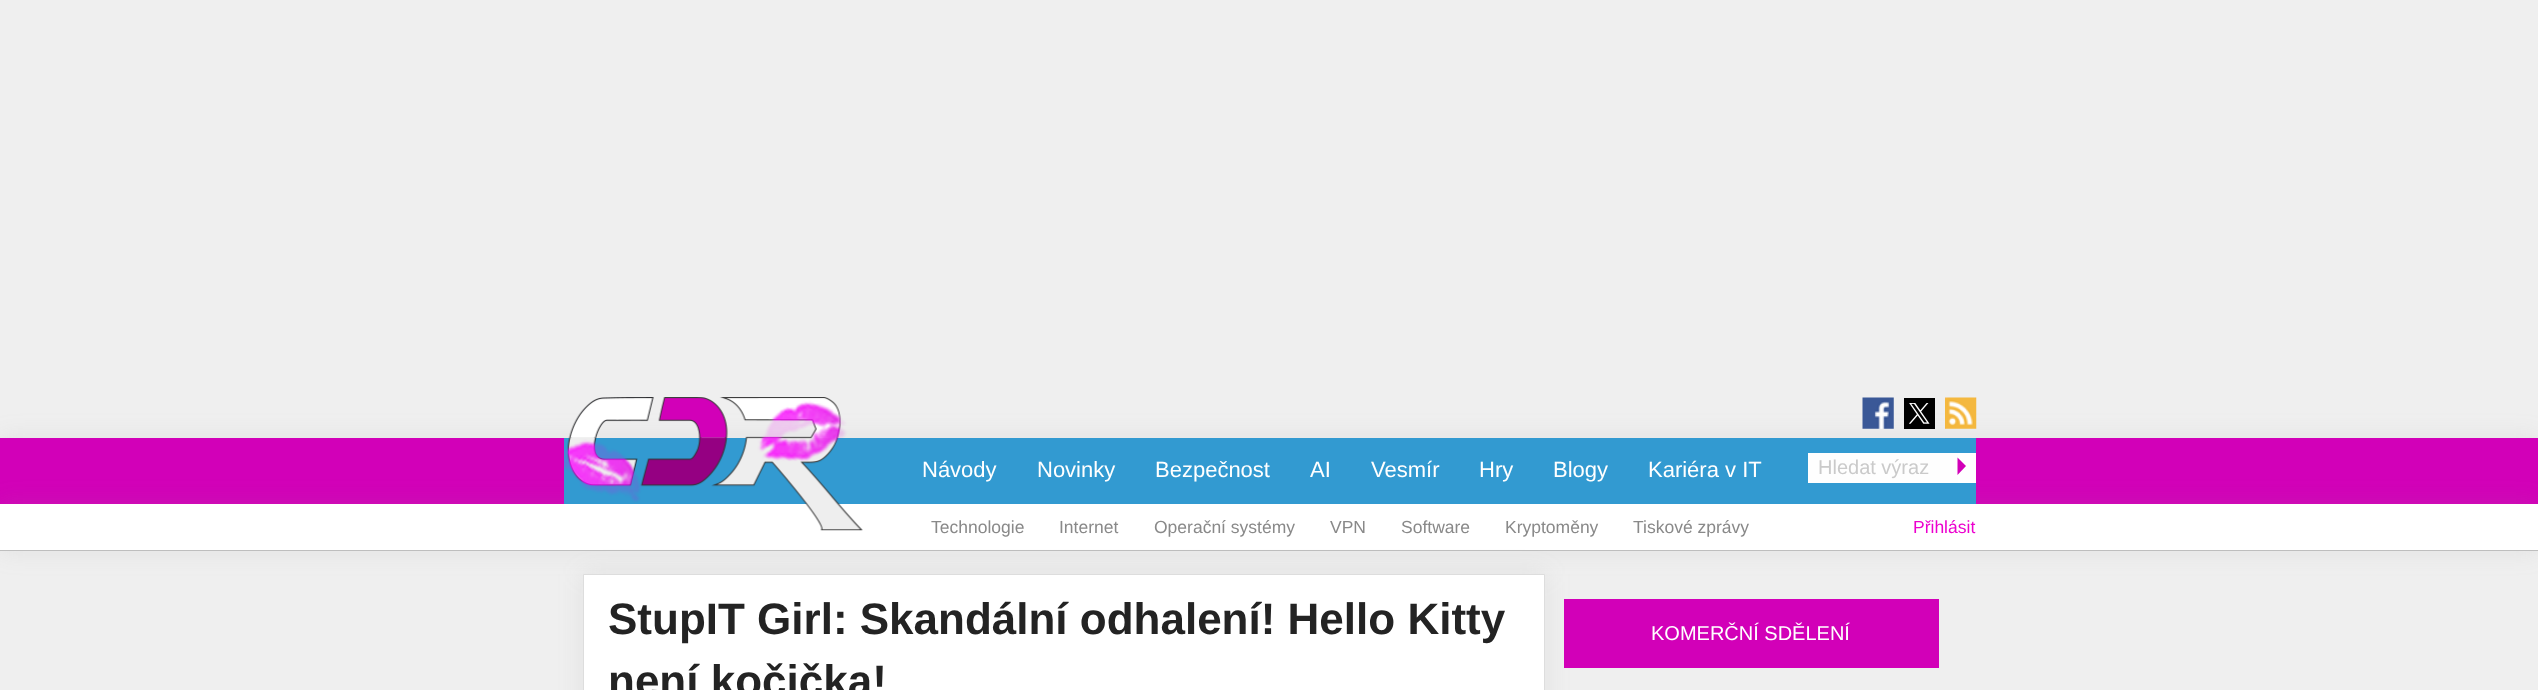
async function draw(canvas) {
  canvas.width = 2538;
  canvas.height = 690;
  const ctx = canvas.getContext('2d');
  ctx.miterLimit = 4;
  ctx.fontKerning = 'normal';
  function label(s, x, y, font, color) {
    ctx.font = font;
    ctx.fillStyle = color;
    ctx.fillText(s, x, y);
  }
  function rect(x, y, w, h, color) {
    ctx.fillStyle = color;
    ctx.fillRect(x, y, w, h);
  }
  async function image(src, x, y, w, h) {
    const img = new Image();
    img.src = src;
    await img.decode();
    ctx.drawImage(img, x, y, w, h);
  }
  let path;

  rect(0, 0, 2538, 690, '#efefef');
  ctx.fillStyle = '#96969626';
  ctx.filter = 'blur(12.5px)';
  ctx.beginPath();
  ctx.rect(0, 438, 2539, 66);
  ctx.fill();
  ctx.filter = 'none';
  rect(0, 438, 2538, 66, '#d200b8');
  ctx.fillStyle = '#96969626';
  ctx.filter = 'blur(12.5px)';
  ctx.beginPath();
  ctx.rect(0, 504, 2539, 47);
  ctx.fill();
  ctx.filter = 'none';
  rect(564, 438, 1412, 66, '#329ad1');
  rect(0, 504, 2538, 46, '#fff');
  await image('assets/img1.png', 564, 397, 299, 134);
  await image('assets/img2.png', 1862, 397, 32, 32);
  rect(1904, 398, 31, 31, '#000');
  await image('assets/img3.png', 1909, 403, 21, 21);
  await image('assets/img4.png', 1945, 397, 32, 32);
  label('Návody', 922, 477, '22px Liberation Sans', '#fff');
  label('Novinky', 1037, 477, '22px Liberation Sans', '#fff');
  label('Bezpečnost', 1155, 477, '22px Liberation Sans', '#fff');
  label('AI', 1310, 477, '22px Liberation Sans', '#fff');
  label('Vesmír', 1371, 477, '22px Liberation Sans', '#fff');
  label('Hry', 1479, 477, '22px Liberation Sans', '#fff');
  label('Blogy', 1553, 477, '22px Liberation Sans', '#fff');
  label('Kariéra v IT', 1648, 477, '22px Liberation Sans', '#fff');
  rect(1808, 453, 150, 30, '#fefefe');
  label('Hledat výraz', 1818, 474, '20px Liberation Sans', '#cacaca');
  rect(1958, 453, 18, 30, '#fff');
  ctx.fillStyle = '#d200b8';
  path = new Path2D('M1957.5 475V457.5L1966 466Z');
  ctx.fill(path);
  rect(0, 550, 2538, 1, '#bebebe');
  label('Technologie', 931, 533, '17.5px Liberation Sans', '#898989');
  label('Internet', 1059, 533, '17.5px Liberation Sans', '#898989');
  label('Operační systémy', 1154, 533, '17.5px Liberation Sans', '#898989');
  label('VPN', 1330, 533, '17.5px Liberation Sans', '#898989');
  label('Software', 1401, 533, '17.5px Liberation Sans', '#898989');
  label('Kryptoměny', 1505, 533, '17.5px Liberation Sans', '#898989');
  label('Tiskové zprávy', 1633, 533, '17.5px Liberation Sans', '#898989');
  label('Přihlásit', 1913, 533, '17.5px Liberation Sans', '#ec00ce');
  ctx.fillStyle = '#96969626';
  ctx.filter = 'blur(12.5px)';
  ctx.beginPath();
  ctx.rect(583, 574, 962, 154);
  ctx.fill();
  ctx.filter = 'none';
  ctx.fillStyle = '#fff';
  ctx.beginPath();
  ctx.rect(583.5, 574.5, 961, 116);
  ctx.fill();
  ctx.strokeStyle = '#ddd';
  ctx.stroke();
  label('StupIT Girl: Skandální odhalení! Hello Kitty', 608, 634, 'bold 44px Liberation Sans', '#232323');
  label('není kočička!', 608, 696, 'bold 44px Liberation Sans', '#232323');
  rect(1564, 599, 375, 69, '#d200b8');
  label('KOMERČNÍ SDĚLENÍ', 1651, 640, '20px Liberation Sans', '#fff');
}

draw(document.querySelector('canvas'));
